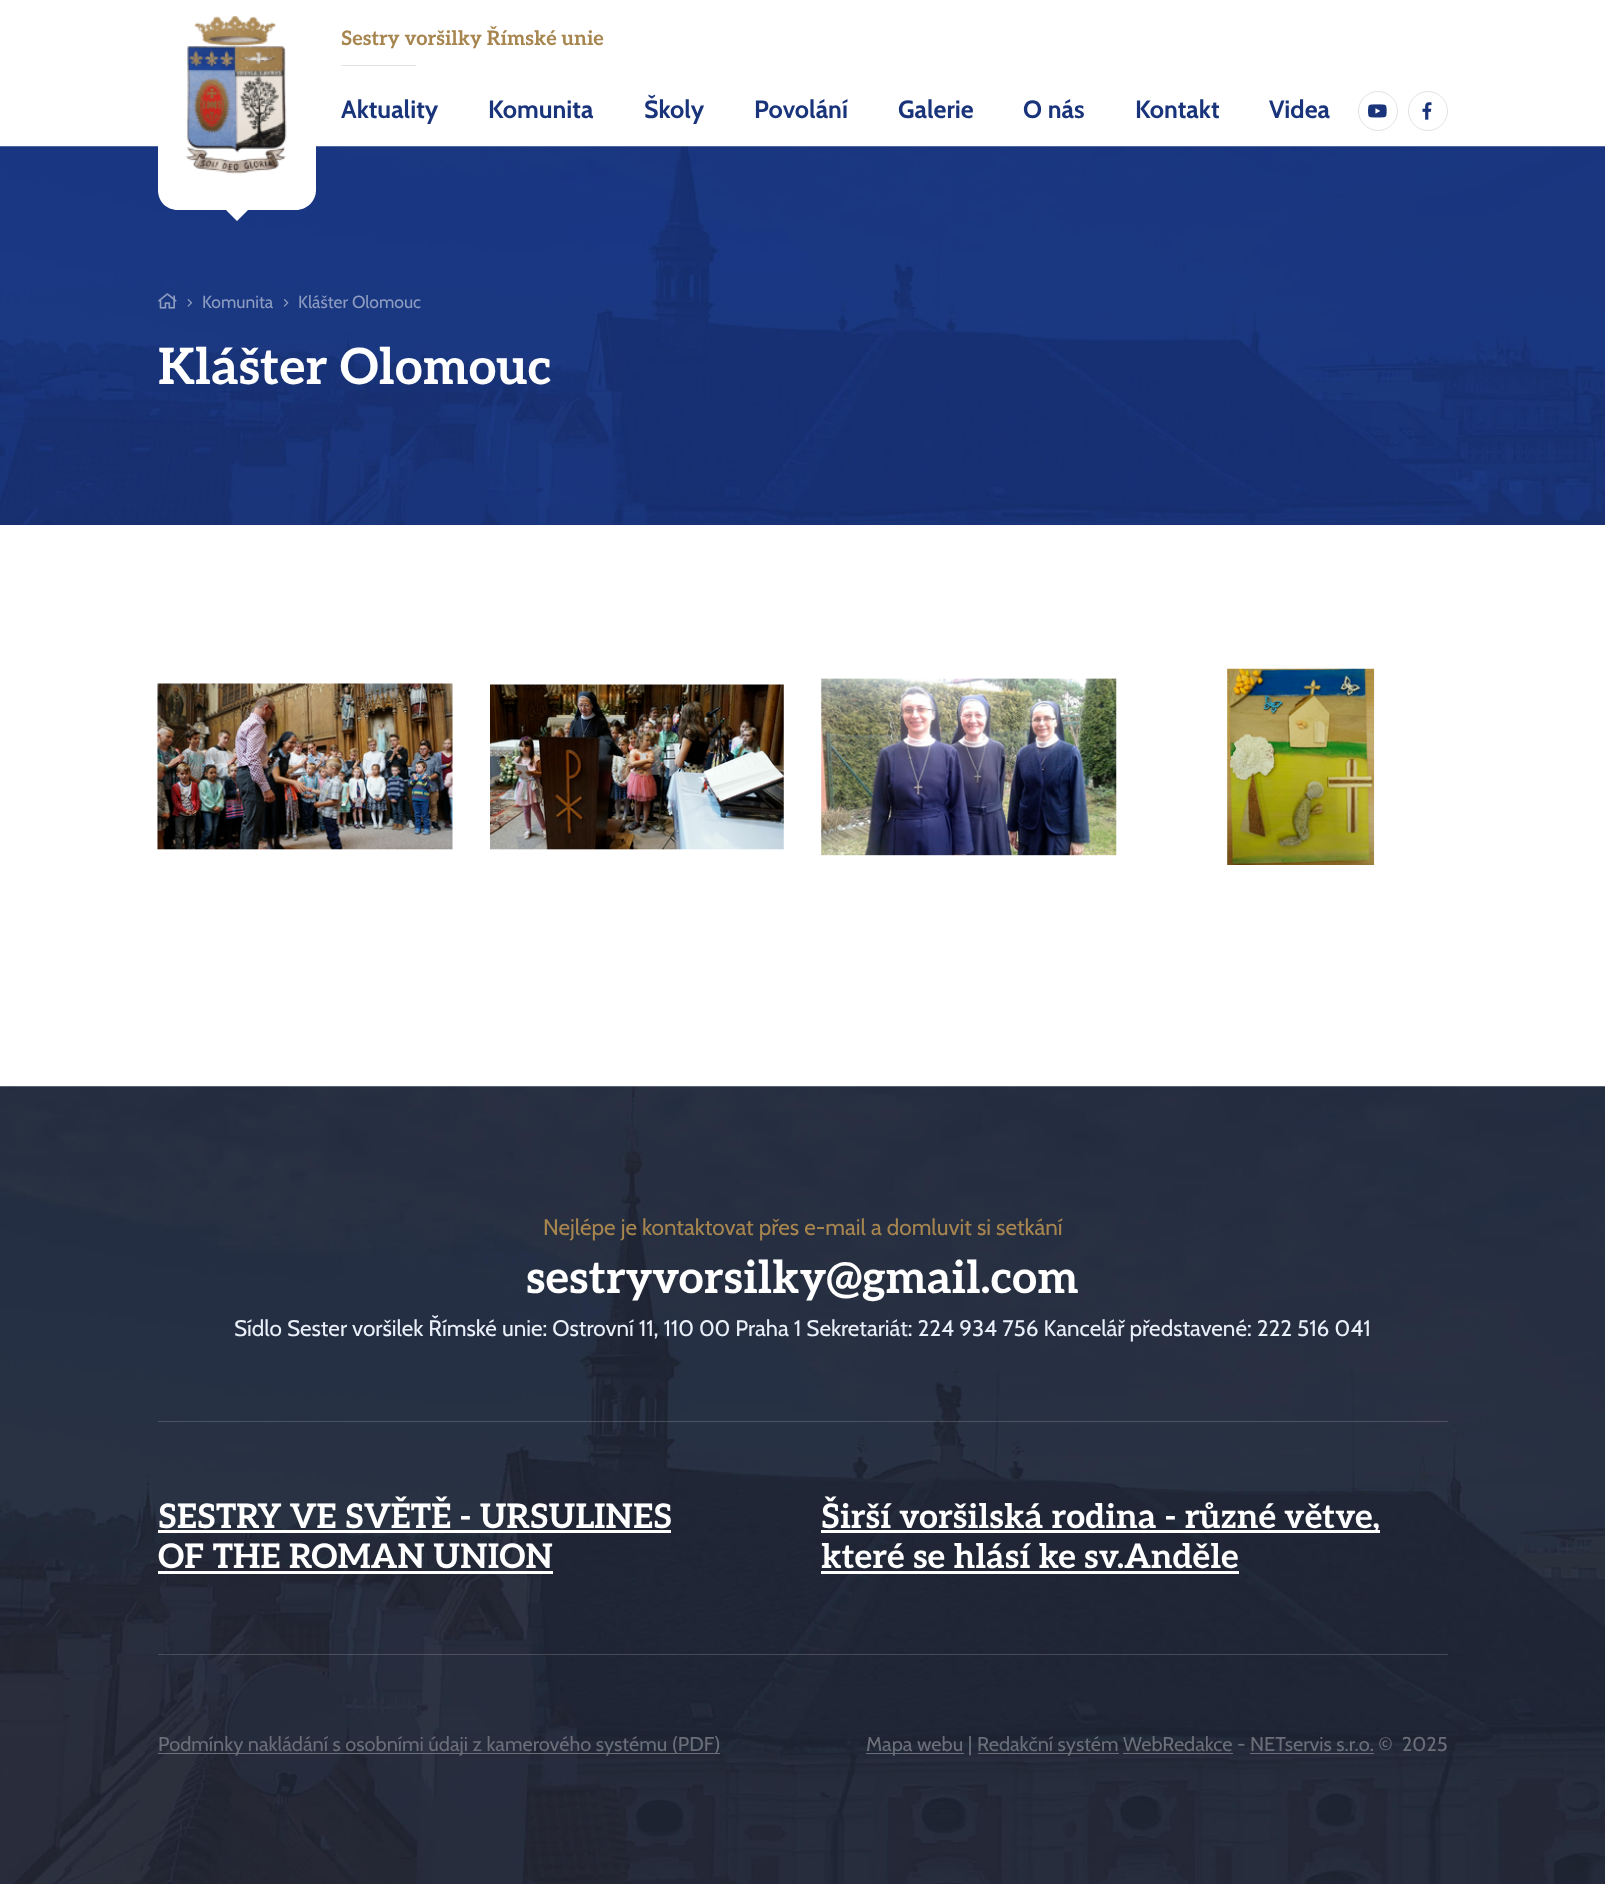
async function draw(canvas) {
  canvas.width = 1605;
  canvas.height = 1884;
  const ctx = canvas.getContext('2d');
  ctx.miterLimit = 4;
  ctx.fontKerning = 'normal';
  function label(s, x, y, font, color) {
    ctx.font = font;
    ctx.fillStyle = color;
    ctx.fillText(s, x, y);
  }
  function rect(x, y, w, h, color) {
    ctx.fillStyle = color;
    ctx.fillRect(x, y, w, h);
  }
  async function image(src, x, y, w, h) {
    const img = new Image();
    img.src = src;
    await img.decode();
    ctx.drawImage(img, x, y, w, h);
  }
  let path;

  rect(0, 0, 1605, 1884, '#fff');
  await image('assets/img4.png', 0, 146, 1605, 379);
  path = new Path2D('M226 210H248L237 221ZM178 210C166 210 158 201 158 190V6C158-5 166-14 178-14H296C307-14 316-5 316 6V190C316 201 307 210 296 210Z');
  ctx.fill(path);
  await image('assets/img1.png', 186, 16, 101, 158);
  label('Sestry voršilky Římské unie', 341, 45, 'bold 20px Aleo', '#a7854f');
  rect(341, 65, 75, 1, '#e3e3e3');
  label('Aktuality', 341, 118, 'bold 25px Cabin', '#19347a');
  label('Komunita', 488, 118, 'bold 25px Cabin', '#19347a');
  label('Školy', 644, 118, 'bold 25px Cabin', '#19347a');
  label('Povolání', 754, 118, 'bold 25px Cabin', '#19347a');
  label('Galerie', 898, 118, 'bold 25px Cabin', '#19347a');
  label('O nás', 1023, 118, 'bold 25px Cabin', '#19347a');
  label('Kontakt', 1135, 118, 'bold 25px Cabin', '#19347a');
  label('Videa', 1269, 118, 'bold 25px Cabin', '#19347a');
  ctx.beginPath();
  ctx.arc(1378, 111, 19.5, 0, 2 * Math.PI);
  ctx.strokeStyle = '#e3e3e3';
  ctx.stroke();
  await image('assets/img2.png', 1368, 104, 19, 14);
  ctx.beginPath();
  ctx.arc(1428, 111, 19.5, 0, 2 * Math.PI);
  ctx.stroke();
  await image('assets/img3.png', 1422, 102, 10, 18);
  await image('assets/img5.png', 158, 293, 19, 16);
  await image('assets/img6.png', 187, 299, 6, 8);
  label('Komunita', 202, 308, '17.5px Cabin', '#8d9cc0');
  await image('assets/img7.png', 283, 299, 6, 8);
  label('Klášter Olomouc', 298, 308, '17.5px Cabin', '#8d9cc0');
  label('Klášter Olomouc', 158, 384, 'bold 50px Aleo', '#fff');
  await image('assets/img8.png', 157, 683, 296, 167);
  await image('assets/img9.png', 490, 684, 294, 166);
  await image('assets/img10.png', 821, 678, 296, 178);
  await image('assets/img11.png', 1227, 668, 148, 197);
  await image('assets/img12.png', 0, 1086, 1605, 798);
  label('Nejlépe je kontaktovat přes e-mail a domluvit si setkání', 543, 1235, '22.5px Cabin', '#a7854f');
  label('sestryvorsilky@gmail.com', 526, 1293, 'bold 45px Aleo', '#fff');
  label('Sídlo Sester voršilek Římské unie: Ostrovní 11, 110 00 Praha 1 Sekretariát: 224 934 756 Kancelář představené: 222 516 041', 234, 1336, '22.5px Cabin', '#eaf0fa');
  rect(158, 1421, 1290, 1, '#e3e3e333');
  label('SESTRY VE SVĚTĚ - URSULINES', 158, 1528, 'bold 33.75px Aleo', '#fff');
  rect(158, 1530, 513, 3, '#fff');
  label('OF THE ROMAN UNION', 158, 1568, 'bold 33.75px Aleo', '#fff');
  rect(158, 1571, 395, 3, '#fff');
  rect(821, 1530, 559, 3, '#fff');
  label('Širší voršilská rodina - různé větve,', 821, 1528, 'bold 33.75px Aleo', '#fff');
  label('které se hlásí ke sv.Anděle', 821, 1568, 'bold 33.75px Aleo', '#fff');
  rect(821, 1571, 418, 3, '#fff');
  rect(158, 1654, 1290, 1, '#e3e3e333');
  rect(158, 1753, 562, 1, '#6a6f79');
  label('Podmínky nakládání s osobními údaji z kamerového systému (PDF)', 158, 1751, '20px Cabin', '#6a6f79');
  rect(866, 1753, 98, 1, '#6a6f79');
  label('Mapa webu |', 866, 1751, '20px Cabin', '#6a6f79');
  rect(978, 1753, 141, 1, '#6a6f79');
  label('Redakční systém WebRedakce - NETservis s.r.o. ©  2025', 977, 1751, '20px Cabin', '#6a6f79');
  rect(1123, 1753, 110, 1, '#6a6f79');
  rect(1250, 1753, 124, 1, '#6a6f79');
}

draw(document.querySelector('canvas'));
